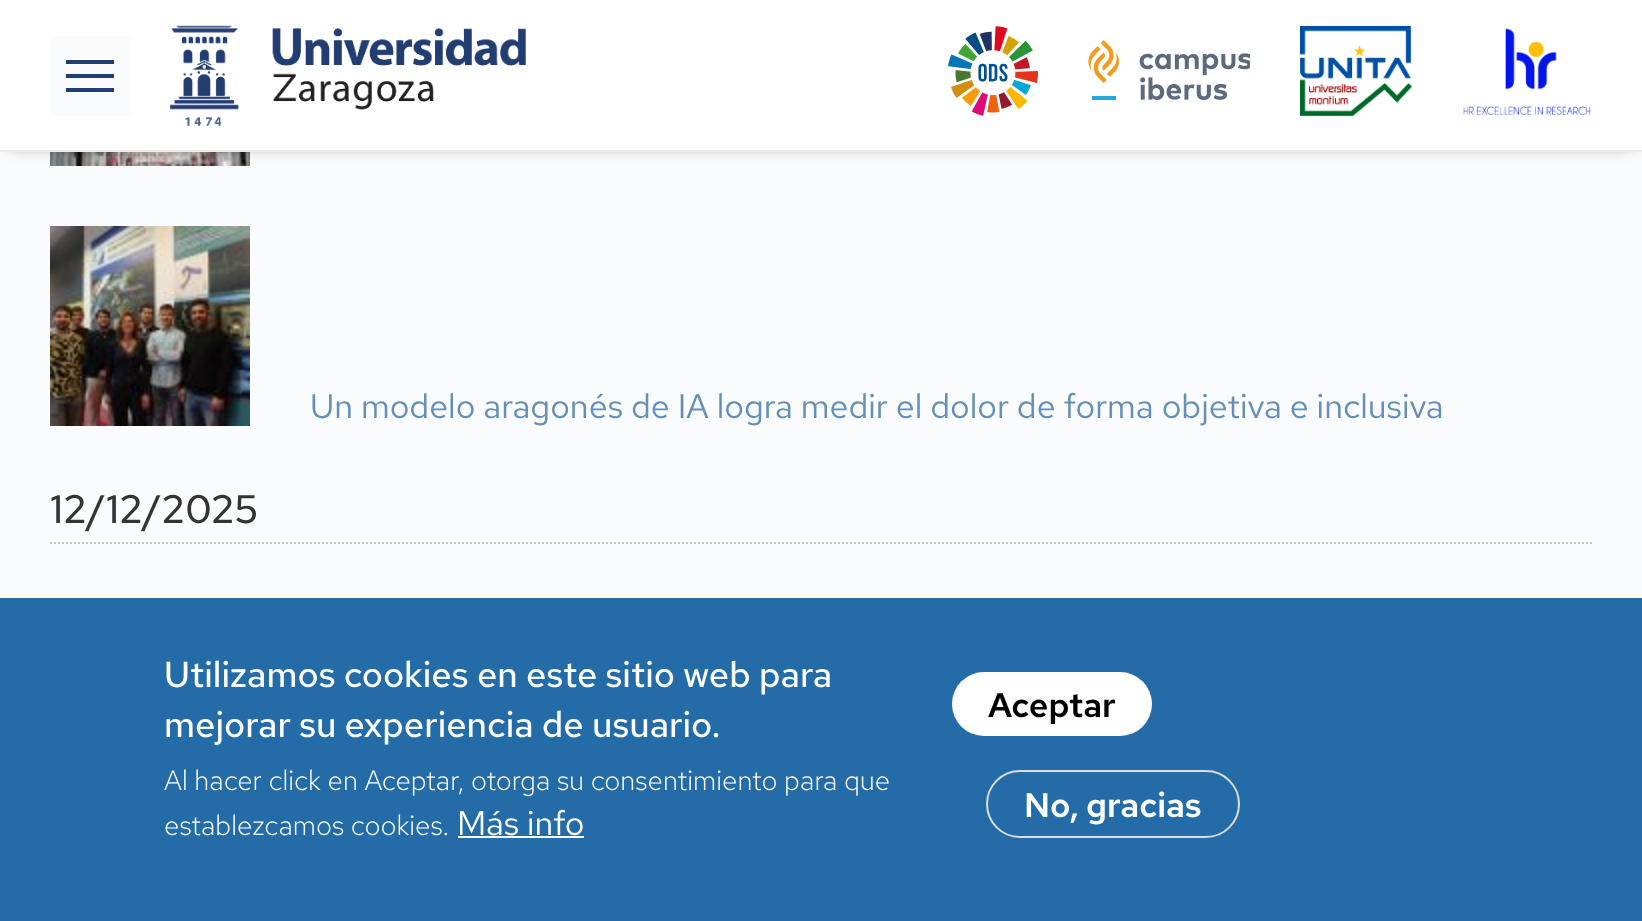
async function draw(canvas) {
  canvas.width = 1642;
  canvas.height = 921;
  const ctx = canvas.getContext('2d');
  ctx.miterLimit = 4;
  ctx.fontKerning = 'normal';
  function label(s, x, y, font, color) {
    ctx.font = font;
    ctx.fillStyle = color;
    ctx.fillText(s, x, y);
  }
  function rect(x, y, w, h, color) {
    ctx.fillStyle = color;
    ctx.fillRect(x, y, w, h);
  }
  function roundedRect(x, y, w, h, r, color) {
    ctx.fillStyle = color;
    ctx.beginPath();
    ctx.roundRect(x, y, w, h, r);
    ctx.fill();
  }
  async function image(src, x, y, w, h) {
    const img = new Image();
    img.src = src;
    await img.decode();
    ctx.drawImage(img, x, y, w, h);
  }
  let path;

  rect(0, 0, 1642, 921, '#fafbfc');
  await image('assets/img6.png', 50, 152, 200, 14);
  ctx.fillStyle = '#000000de';
  ctx.filter = 'blur(10px)';
  ctx.beginPath();
  ctx.rect(10, 8, 1622, 132);
  ctx.fill();
  ctx.filter = 'none';
  rect(0, 0, 1642, 150, '#fff');
  rect(0, 150, 1642, 2, '#ececec');
  rect(50, 36, 80, 80, '#fafbfc');
  rect(66, 60, 48, 4, '#223d71');
  rect(66, 74, 48, 4, '#223d71');
  rect(66, 88, 48, 4, '#223d71');
  await image('assets/img1.png', 170, 25, 356, 101);
  await image('assets/img2.png', 948, 26, 90, 90);
  await image('assets/img3.png', 1088, 40, 162, 60);
  await image('assets/img4.png', 1300, 26, 112, 90);
  await image('assets/img5.png', 1463, 28, 128, 88);
  await image('assets/img7.png', 50, 226, 200, 200);
  label('Un modelo aragonés de IA logra medir el dolor de forma objetiva e inclusiva', 310, 418, '34px Red Hat Text', '#648fb6');
  path = new Path2D('M50 543H1592');
  ctx.strokeStyle = '#c4c4c4';
  ctx.lineWidth = 2;
  ctx.setLineDash([2, 2]);
  ctx.stroke(path);
  label('12/12/2025', 50, 523, '500 39.75px Red Hat Text', '#343434');
  rect(0, 598, 1642, 323, '#236ca7');
  label('Utilizamos cookies en este sitio web para', 164, 687, '500 36px Red Hat Text', '#fff');
  label('mejorar su experiencia de usuario.', 164, 737, '500 36px Red Hat Text', '#fff');
  label('Al hacer click en Aceptar, otorga su consentimiento para que', 164, 790, '300 28px Red Hat Text', '#fff');
  label('establezcamos cookies.', 164, 835, '300 28px Red Hat Text', '#fff');
  label('Más info', 457, 835, '34px Red Hat Text', '#fff');
  rect(458, 836, 126, 2, '#fff');
  roundedRect(952, 672, 200, 64, 32, '#fff');
  label('Aceptar', 988, 717, '600 34px Red Hat Text', '#000');
  ctx.beginPath();
  ctx.roundRect(987, 771, 252, 66, 33);
  ctx.strokeStyle = '#dcdcdc';
  ctx.setLineDash([]);
  ctx.stroke();
  label('No, gracias', 1024, 817, '600 34px Red Hat Text', '#fff');
}

draw(document.querySelector('canvas'));
